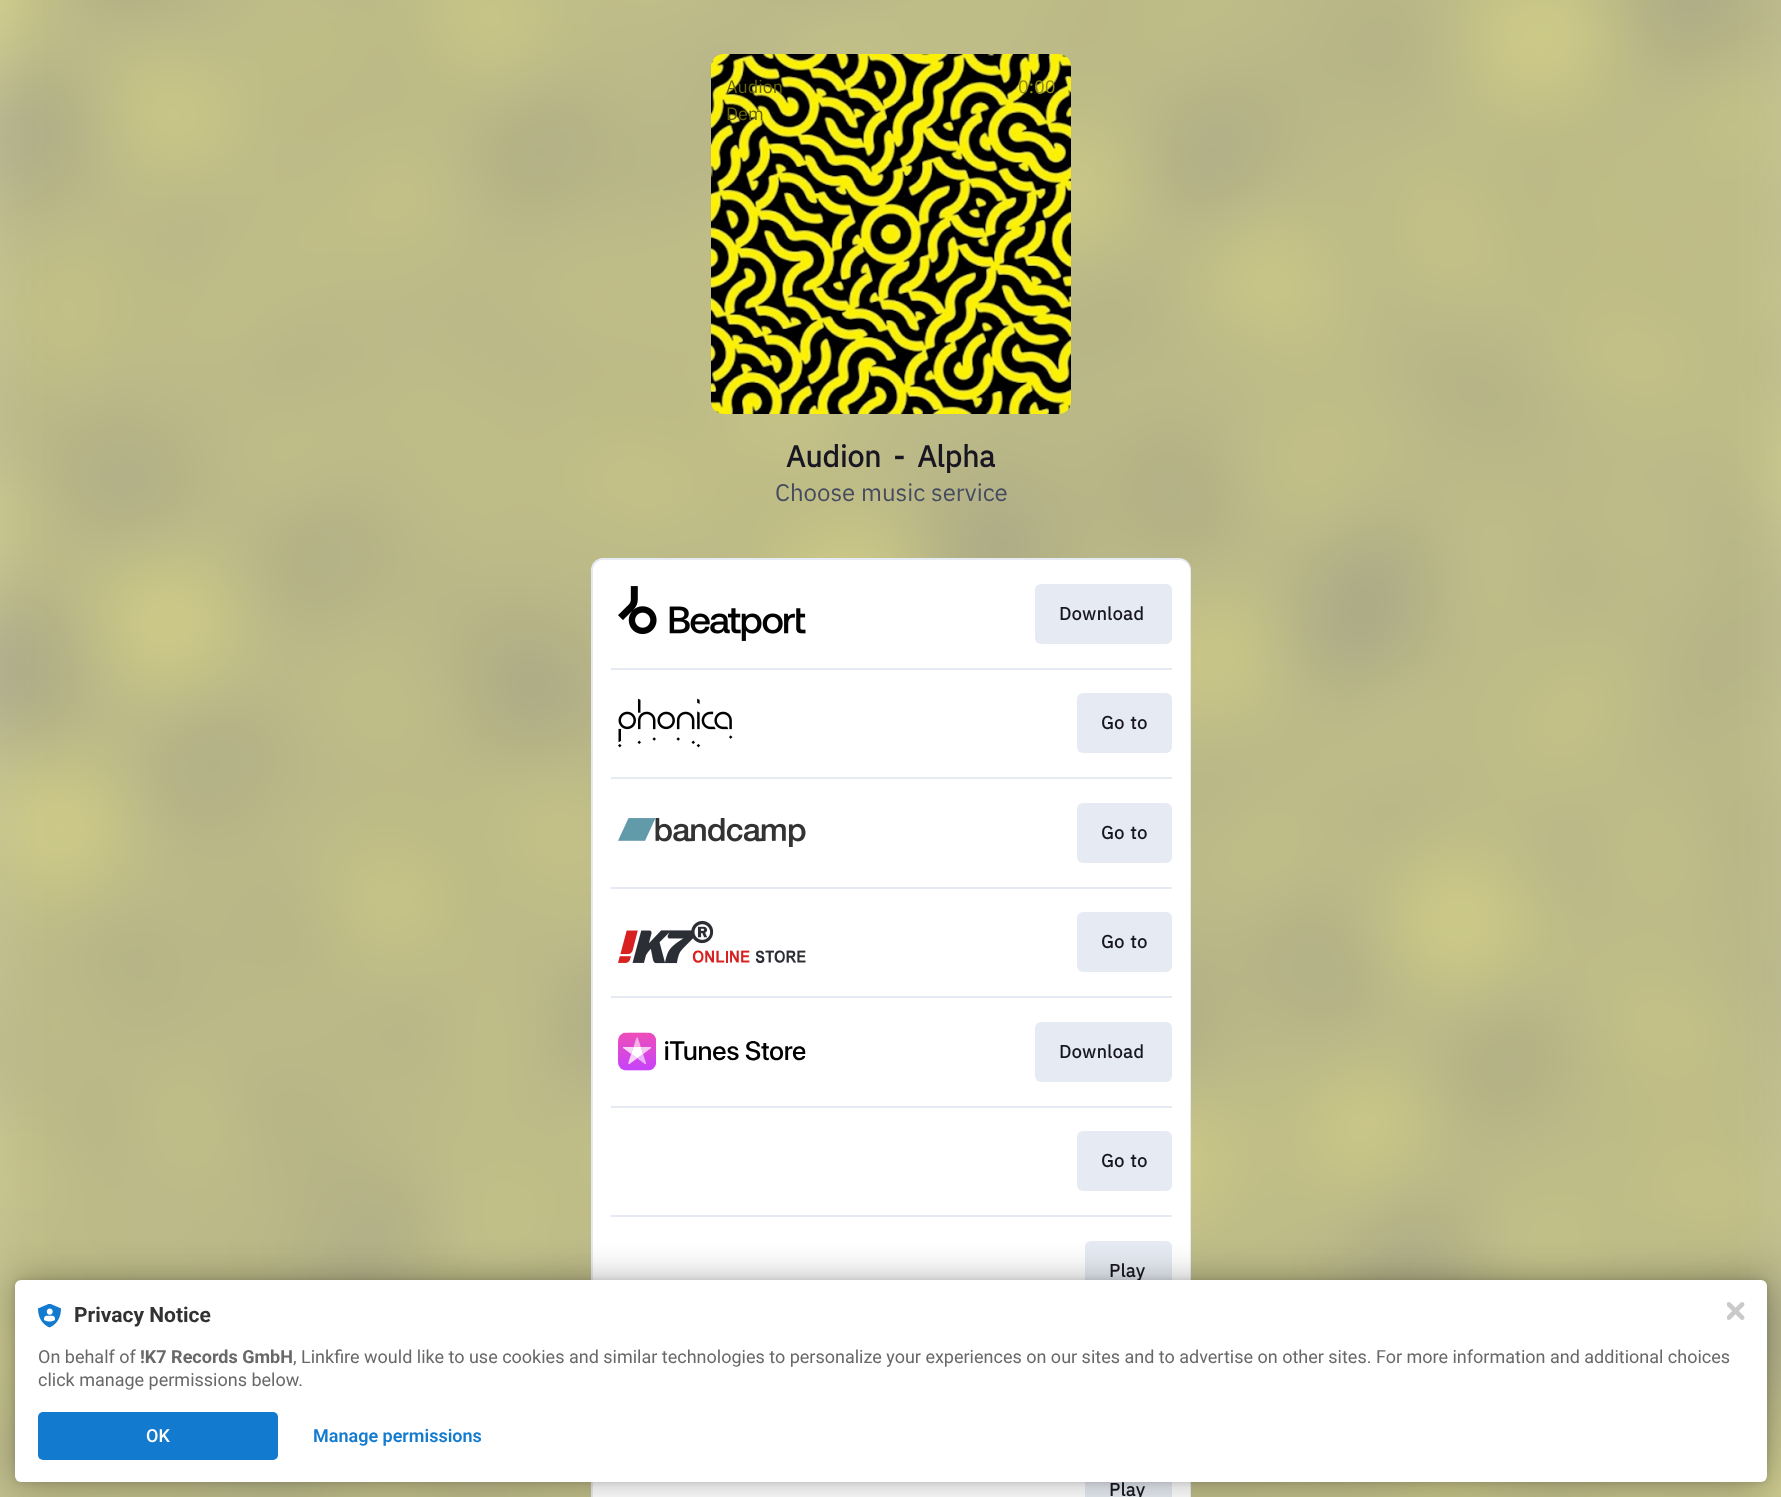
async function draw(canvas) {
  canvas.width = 1781;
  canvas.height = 1497;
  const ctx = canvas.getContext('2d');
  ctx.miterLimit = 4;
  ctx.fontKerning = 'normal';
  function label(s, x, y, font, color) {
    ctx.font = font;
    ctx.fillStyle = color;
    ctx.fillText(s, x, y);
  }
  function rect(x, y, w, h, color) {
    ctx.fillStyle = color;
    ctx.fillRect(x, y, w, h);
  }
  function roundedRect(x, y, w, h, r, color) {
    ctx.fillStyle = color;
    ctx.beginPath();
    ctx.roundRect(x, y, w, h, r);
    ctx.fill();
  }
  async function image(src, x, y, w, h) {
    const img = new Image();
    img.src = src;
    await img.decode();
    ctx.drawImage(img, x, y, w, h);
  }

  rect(0, 0, 1781, 1497, '#fff');
  await image('assets/img1.png', 0, 0, 1781, 1497);
  await image('assets/img2.png', 711, 54, 360, 360);
  label('Audion', 726, 93, '18px IBM Plex Sans', '#66620b');
  label('Dem', 726, 120, '18px IBM Plex Sans', '#66620b');
  label('0:00', 1018, 93, '18px IBM Plex Sans', '#8f8a14');
  ctx.wordSpacing = '5px';
  label('Audion - Alpha', 786, 467, 'bold 30px IBM Plex Sans', '#181721');
  ctx.wordSpacing = '0px';
  label('Choose music service', 775, 501, '24px IBM Plex Sans', '#454b5f');
  ctx.fillStyle = '#fff';
  ctx.beginPath();
  ctx.roundRect(592, 559, 598, 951, 11);
  ctx.fill();
  ctx.strokeStyle = '#e6eaf2';
  ctx.lineWidth = 2;
  ctx.stroke();
  roundedRect(593, 560, 597, 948, 11, '#fff');
  await image('assets/img3.png', 618, 586, 188, 55);
  roundedRect(1035, 584, 137, 60, 6, '#e6eaf2');
  ctx.letterSpacing = '0.5px';
  label('Download', 1059, 620, 'bold 18px IBM Plex Sans', '#181721');
  rect(611, 668, 561, 2, '#e6eaf2');
  await image('assets/img4.png', 618, 698, 115, 50);
  roundedRect(1077, 693, 95, 60, 6, '#e6eaf2');
  ctx.wordSpacing = '1px';
  label('Go to', 1101, 729, 'bold 18px IBM Plex Sans', '#181721');
  rect(611, 777, 561, 2, '#e6eaf2');
  await image('assets/img5.png', 618, 818, 188, 29);
  roundedRect(1077, 803, 95, 60, 6, '#e6eaf2');
  label('Go to', 1101, 839, 'bold 18px IBM Plex Sans', '#181721');
  rect(611, 887, 561, 2, '#e6eaf2');
  await image('assets/img6.png', 618, 920, 188, 44);
  roundedRect(1077, 912, 95, 60, 6, '#e6eaf2');
  label('Go to', 1101, 948, 'bold 18px IBM Plex Sans', '#181721');
  rect(611, 996, 561, 2, '#e6eaf2');
  await image('assets/img7.png', 618, 1032, 188, 39);
  roundedRect(1035, 1022, 137, 60, 6, '#e6eaf2');
  ctx.wordSpacing = '0px';
  label('Download', 1059, 1058, 'bold 18px IBM Plex Sans', '#181721');
  rect(611, 1106, 561, 2, '#e6eaf2');
  roundedRect(1077, 1131, 95, 60, 6, '#e6eaf2');
  ctx.wordSpacing = '1px';
  label('Go to', 1101, 1167, 'bold 18px IBM Plex Sans', '#181721');
  rect(611, 1215, 561, 2, '#e6eaf2');
  roundedRect(1085, 1241, 87, 60, 6, '#e6eaf2');
  ctx.wordSpacing = '0px';
  label('Play', 1109, 1277, 'bold 18px IBM Plex Sans', '#181721');
  rect(1085, 1482, 87, 15, '#e6eaf2');
  label('Play', 1109, 1496, 'bold 18px IBM Plex Sans', '#181721');
  ctx.fillStyle = '#0000001f';
  ctx.filter = 'blur(3px)';
  ctx.beginPath();
  ctx.roundRect(15, 1280, 1752, 202, 6);
  ctx.fill();
  ctx.filter = 'none';
  ctx.fillStyle = '#0000004d';
  ctx.filter = 'blur(18px)';
  ctx.beginPath();
  ctx.roundRect(15, 1280, 1752, 202, 6);
  ctx.fill();
  ctx.filter = 'none';
  roundedRect(15, 1280, 1752, 202, 6, '#fff');
  await image('assets/img8.png', 38, 1304, 23, 24);
  ctx.letterSpacing = '0px';
  label('Privacy Notice', 74, 1322, 'bold 21px Roboto', '#323232');
  label('On behalf of', 38, 1363, '18px Roboto', '#686868');
  label('!K7 Records GmbH', 140, 1363, 'bold 18px Roboto', '#686868');
  label(', Linkfire would like to use cookies and similar technologies to personalize your experiences on our sites and to advertise on other sites. For more information and additional choices', 293, 1363, '18px Roboto', '#686868');
  label('click manage permissions below.', 38, 1386, '18px Roboto', '#686868');
  roundedRect(38, 1412, 240, 48, 5, '#137bcf');
  label('OK', 146, 1442, '500 18px Roboto', '#fff');
  label('Manage permissions', 313, 1442, '600 18px Roboto', '#137bcf');
  await image('assets/img9.png', 1727, 1302, 18, 18);
}

draw(document.querySelector('canvas'));
